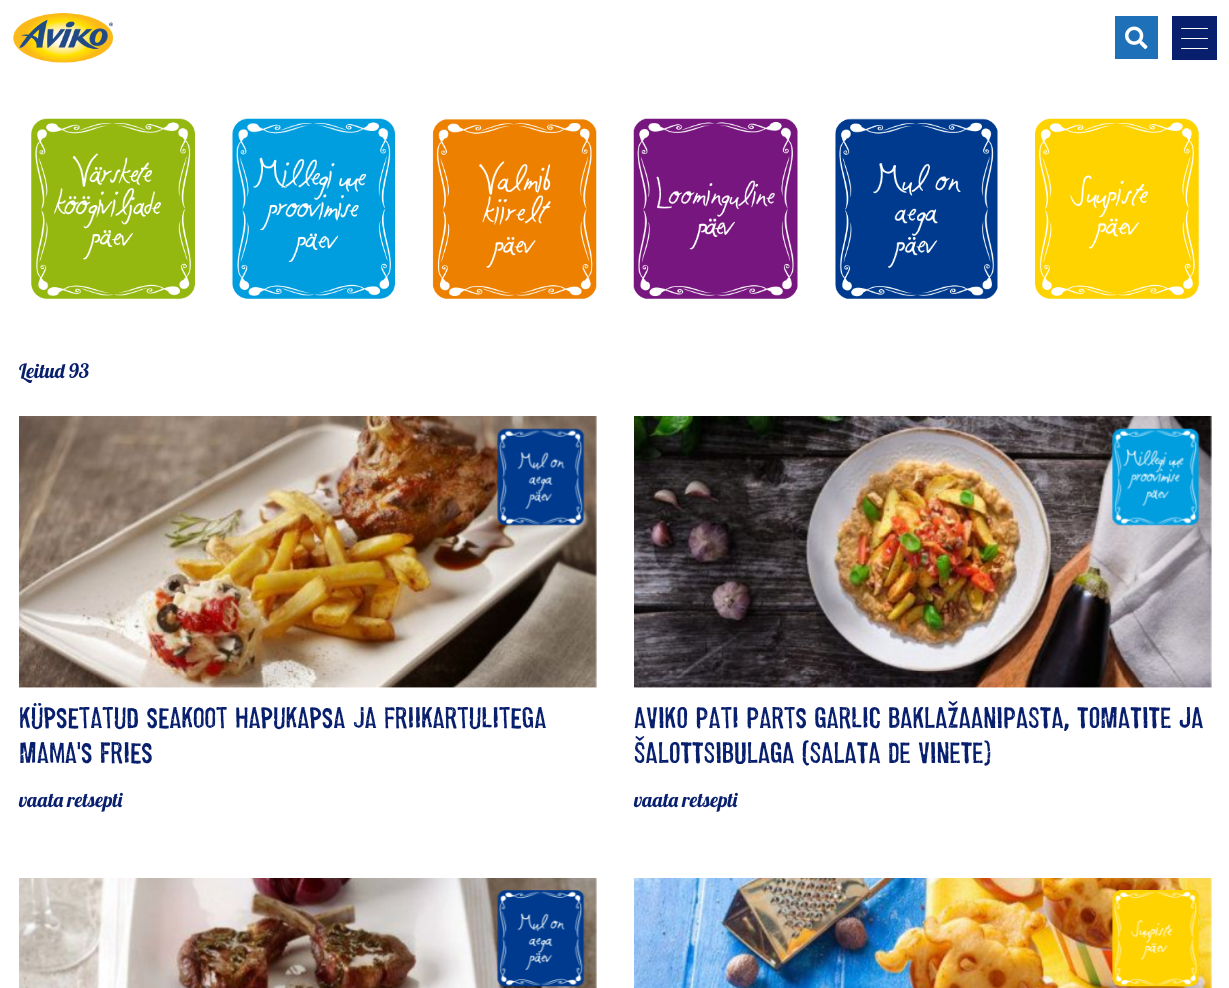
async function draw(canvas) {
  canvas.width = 1229;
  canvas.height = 988;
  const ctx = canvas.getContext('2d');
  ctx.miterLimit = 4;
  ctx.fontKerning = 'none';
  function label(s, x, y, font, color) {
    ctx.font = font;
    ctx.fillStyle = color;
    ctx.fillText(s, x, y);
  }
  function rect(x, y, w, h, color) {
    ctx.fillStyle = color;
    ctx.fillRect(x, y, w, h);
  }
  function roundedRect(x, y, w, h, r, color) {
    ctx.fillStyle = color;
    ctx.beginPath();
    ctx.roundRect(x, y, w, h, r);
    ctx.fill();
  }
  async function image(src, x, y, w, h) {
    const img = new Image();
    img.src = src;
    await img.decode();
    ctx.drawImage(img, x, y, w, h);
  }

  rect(0, 0, 1229, 988, '#fff');
  await image('assets/img1.png', 13, 13, 100, 50);
  rect(1115, 16, 43, 43, '#1e71b8');
  await image('assets/img2.png', 1125, 26, 23, 23);
  rect(1172, 16, 45, 44, '#081f6e');
  roundedRect(1181, 28, 27, 1, 0.5, '#fff');
  roundedRect(1181, 38, 27, 1, 0.5, '#fff');
  roundedRect(1181, 48, 27, 1, 0.5, '#fff');
  await image('assets/img3.png', 31, 118, 164, 181);
  await image('assets/img4.png', 232, 118, 163, 181);
  await image('assets/img5.png', 432, 118, 165, 181);
  await image('assets/img6.png', 633, 118, 165, 181);
  await image('assets/img7.png', 835, 118, 163, 181);
  await image('assets/img8.png', 1035, 118, 164, 181);
  label('Leitud 93', 19, 378, '20px Lobster', '#081f6e');
  await image('assets/img9.png', 19, 416, 578, 272);
  await image('assets/img10.png', 497, 428, 88, 98);
  label('Küpsetatud seakoot hapukapsa ja friikartulitega', 19, 728, '35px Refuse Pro', '#081f6e');
  label('Mama\'s Fries', 19, 763, '35px Refuse Pro', '#081f6e');
  label('vaata retsepti', 19, 807, '20px Lobster', '#081f6e');
  await image('assets/img11.png', 634, 416, 578, 272);
  await image('assets/img12.png', 1112, 428, 88, 98);
  label('AVIKO Pati Parts Garlic BAKLAŽAANIPASTA, TOMATITE JA', 634, 728, '35px Refuse Pro', '#081f6e');
  label('ŠALOTTSIBULAGA (SALATA DE VINETE)', 634, 763, '35px Refuse Pro', '#081f6e');
  label('vaata retsepti', 634, 807, '20px Lobster', '#081f6e');
  await image('assets/img13.png', 19, 878, 578, 110);
  await image('assets/img14.png', 497, 890, 88, 97);
  await image('assets/img15.png', 634, 878, 578, 110);
  await image('assets/img16.png', 1112, 890, 88, 97);
}

draw(document.querySelector('canvas'));
